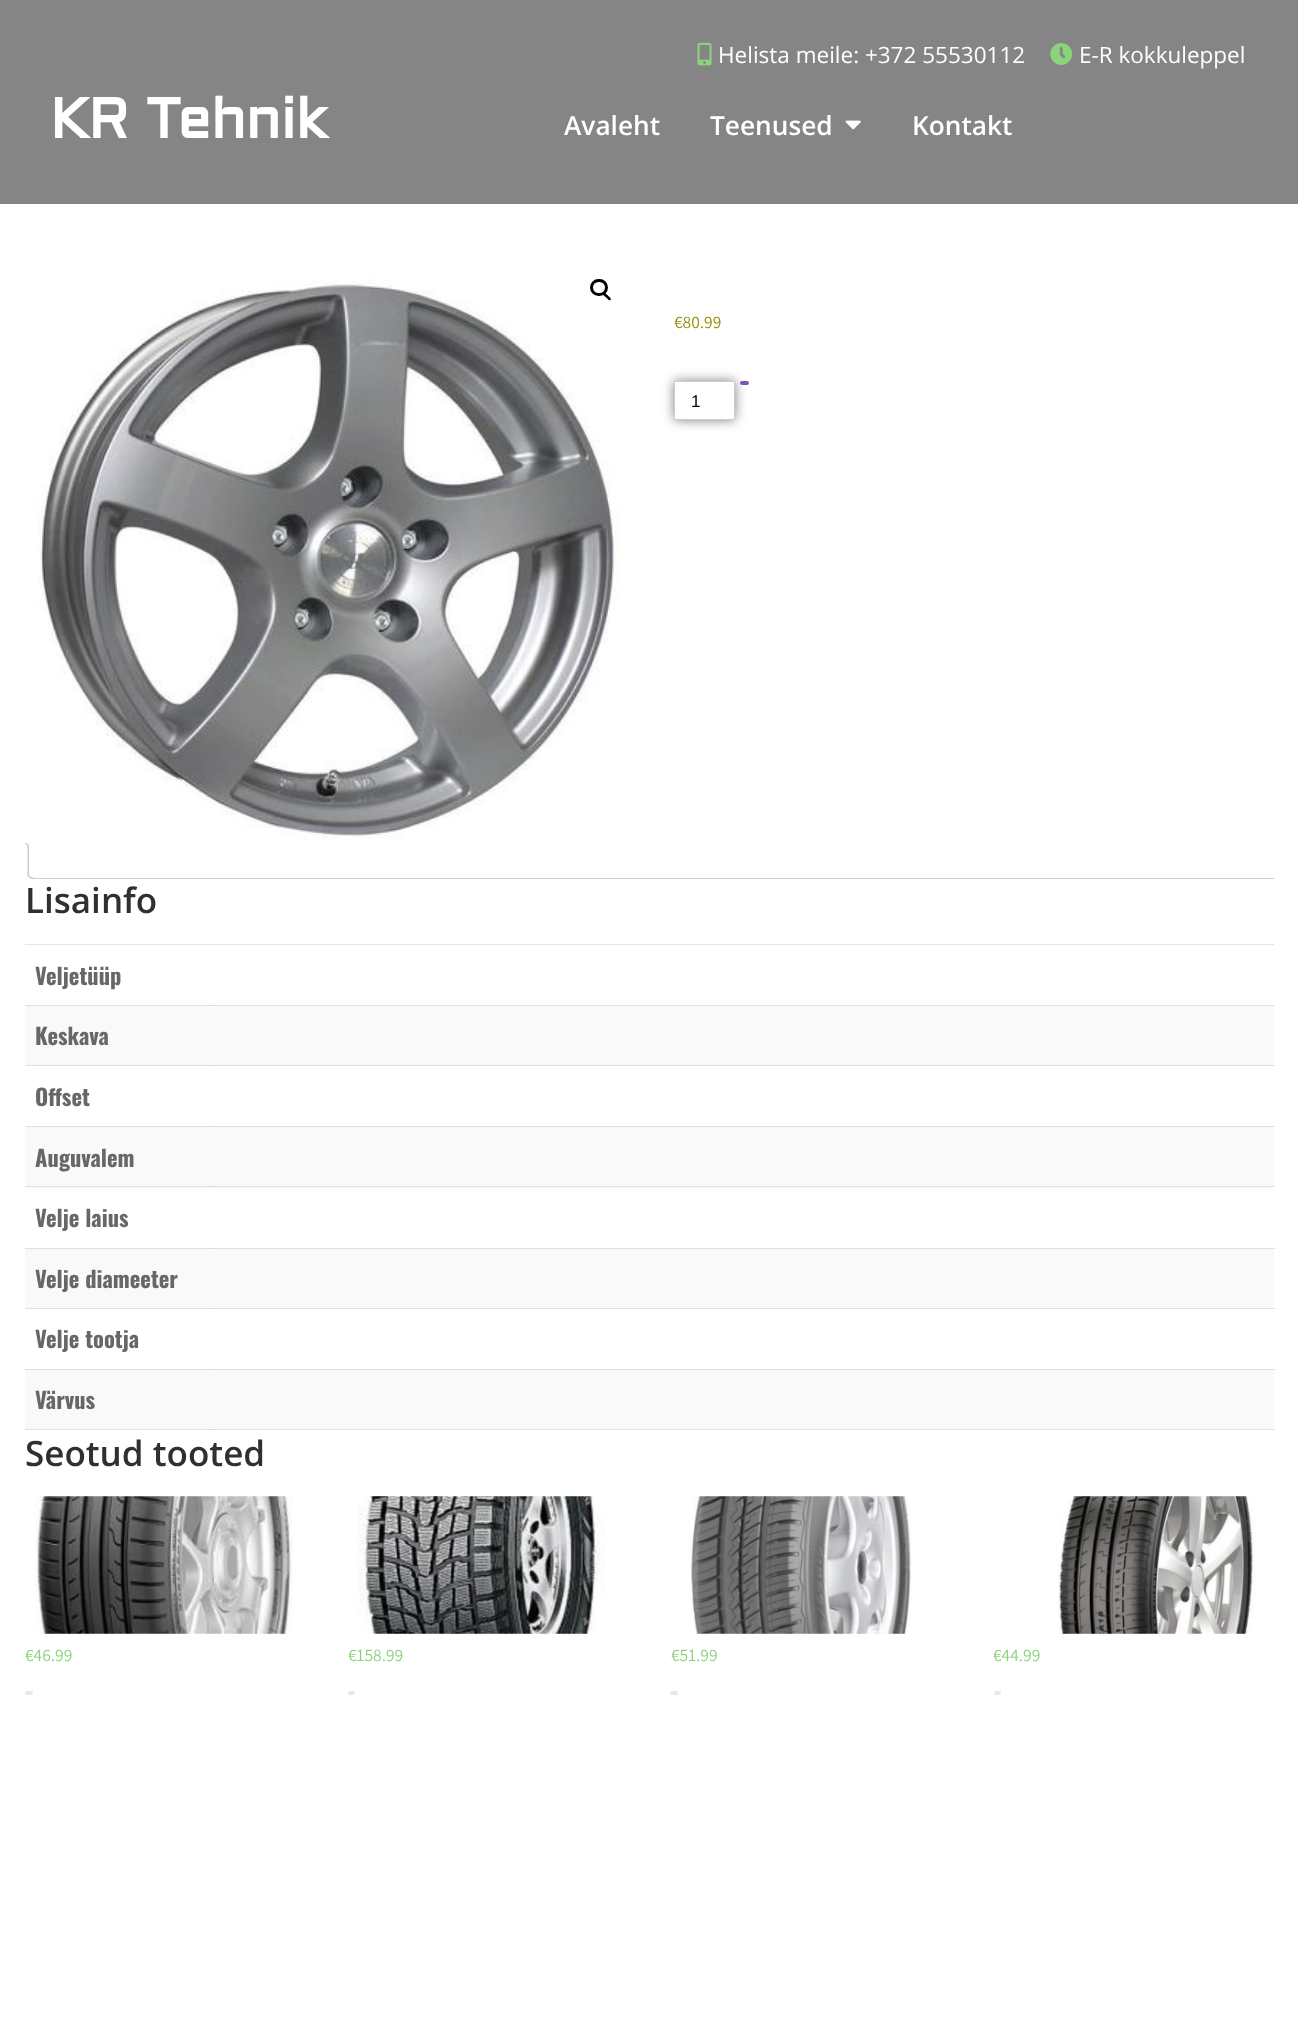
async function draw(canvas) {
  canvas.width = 1298;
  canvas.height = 2019;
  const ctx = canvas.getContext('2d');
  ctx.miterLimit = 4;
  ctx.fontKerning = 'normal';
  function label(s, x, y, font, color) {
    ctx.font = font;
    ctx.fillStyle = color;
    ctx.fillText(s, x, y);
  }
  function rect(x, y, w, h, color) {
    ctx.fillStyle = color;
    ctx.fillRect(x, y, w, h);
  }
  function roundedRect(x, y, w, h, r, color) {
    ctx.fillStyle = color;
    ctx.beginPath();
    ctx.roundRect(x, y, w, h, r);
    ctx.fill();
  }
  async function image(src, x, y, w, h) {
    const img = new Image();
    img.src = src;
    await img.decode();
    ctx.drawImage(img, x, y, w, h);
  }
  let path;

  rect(0, 0, 1298, 2019, '#fff');
  rect(1274, 1005, 1, 1, '#e6e6e6');
  rect(1274, 1065, 1, 1, '#e6e6e6');
  rect(1274, 1126, 1, 1, '#e6e6e6');
  rect(1274, 1186, 1, 1, '#e6e6e6');
  rect(1274, 1248, 1, 1, '#e6e6e6');
  rect(1274, 1308, 1, 1, '#e6e6e6');
  rect(1274, 1369, 1, 1, '#e6e6e6');
  rect(1274, 1429, 1, 1, '#e6e6e6');
  rect(0, 0, 1298, 204, '#868585');
  await image('assets/img1.png', 697, 42, 15, 24);
  label('Helista meile: +372 55530112', 718, 63, '22.5px Open Sans', '#fff');
  await image('assets/img2.png', 1050, 43, 23, 22);
  label('E-R kokkuleppel', 1079, 63, '22.5px Open Sans', '#fff');
  label('KR Tehnik', 50, 138, 'bold 56.25px Aldrich', '#fff');
  label('Avaleht', 564, 135, '600 26.25px Open Sans', '#fff');
  label('Teenused', 710, 135, '600 26.25px Open Sans', '#fff');
  await image('assets/img3.png', 845, 120, 16, 10);
  label('Kontakt', 912, 135, '600 26.25px Open Sans', '#fff');
  await image('assets/img4.png', 38, 279, 584, 561);
  ctx.beginPath();
  ctx.roundRect(591.5, 280.5, 15, 14, 7);
  ctx.strokeStyle = '#000';
  ctx.lineWidth = 3;
  ctx.stroke();
  ctx.fillStyle = '#000';
  path = new Path2D('M603.5 293C605 291.5 607 295 608 295.5C608.5 296.5 612 298.5 610.5 300C609 301.5 607 298 606 297.5C605 296.5 602 294.5 603.5 293Z');
  ctx.fill(path);
  label('€80.99', 674, 328, '17.5px Assistant', '#958e09');
  ctx.fillStyle = '#00000080';
  ctx.filter = 'blur(6px)';
  ctx.beginPath();
  ctx.rect(674, 381, 61, 39);
  ctx.fill();
  ctx.filter = 'none';
  roundedRect(740, 381, 9, 4, 2, '#7f54b3');
  ctx.fillStyle = '#fff';
  ctx.beginPath();
  ctx.rect(674.5, 381.5, 60, 38);
  ctx.fill();
  ctx.strokeStyle = '#ccc';
  ctx.lineWidth = 1;
  ctx.stroke();
  label('1', 691, 407, '17px Liberation Sans', '#000');
  rect(25, 878, 1249, 1, '#cfc8d8');
  ctx.fillStyle = '#fff';
  ctx.beginPath();
  ctx.roundRect(25, 843, 4, 36, [0, 4.5, 0, 0]);
  ctx.fill();
  ctx.save();
  ctx.beginPath();
  ctx.rect(25, 843, 1249, 36);
  ctx.clip();
  ctx.fillStyle = '#cfc8d8';
  path = new Path2D('M24.5 842.5C23 842.5 22 843 21.5 844L22 844.5C23.5 844 25.5 843.5 26.5 844.5L27.5 843.5C27 843 25.5 842.5 24.5 842.5Z');
  ctx.fill(path);
  ctx.restore();
  ctx.fillStyle = '#cfc8d8';
  path = new Path2D('M27.5 843.5L29 845.5V879L27.5 877.5V847C27.5 846 27 845 26.5 844.5Z');
  ctx.fill(path);
  ctx.save();
  ctx.beginPath();
  ctx.rect(25, 843, 1249, 36);
  ctx.clip();
  ctx.fillStyle = '#fff';
  path = new Path2D('M29 879L27.5 877.5H21L20 879Z');
  ctx.fill(path);
  path = new Path2D('M25 875C25 879 27 881 31 881V878.5C29.5 878 28 876.5 27.5 875Z');
  ctx.fill(path);
  ctx.restore();
  path = new Path2D('M27.5 872.5H34V879C30.5 879 27.5 877.5 27.5 874ZM29 872.5H34V877.5C31.5 877.5 29 876.5 29 874Z');
  ctx.fill(path, 'evenodd');
  label('Lisainfo', 25, 913, '600 35px Open Sans', '#303030');
  rect(25, 944, 1249, 1, '#e6e6e6');
  label('Veljetüüp', 35, 985, 'bold 22.5px Oswald', '#676767');
  rect(25, 1006, 1249, 59, '#f9f9f9');
  rect(25, 1005, 1249, 1, '#e0e0e0');
  rect(25, 1065, 1249, 1, '#e0e0e0');
  label('Keskava', 35, 1045, 'bold 22.5px Oswald', '#676767');
  rect(213, 1005, 1, 1, '#cacaca');
  rect(213, 1065, 1, 1, '#cacaca');
  label('Offset', 35, 1106, 'bold 22.5px Oswald', '#676767');
  rect(25, 1127, 1249, 61, '#f9f9f9');
  rect(25, 1126, 1249, 1, '#e0e0e0');
  rect(25, 1186, 1249, 1, '#e0e0e0');
  label('Auguvalem', 35, 1167, 'bold 22.5px Oswald', '#676767');
  rect(213, 1126, 1, 1, '#cacaca');
  rect(213, 1186, 1, 1, '#cacaca');
  label('Velje laius', 35, 1227, 'bold 22.5px Oswald', '#676767');
  rect(25, 1249, 1249, 59, '#f9f9f9');
  rect(25, 1248, 1249, 1, '#e0e0e0');
  rect(25, 1308, 1249, 1, '#e0e0e0');
  label('Velje diameeter', 35, 1288, 'bold 22.5px Oswald', '#676767');
  rect(213, 1248, 1, 1, '#cacaca');
  rect(213, 1308, 1, 1, '#cacaca');
  label('Velje tootja', 35, 1348, 'bold 22.5px Oswald', '#676767');
  rect(25, 1370, 1249, 59, '#f9f9f9');
  rect(25, 1369, 1249, 1, '#e0e0e0');
  rect(25, 1429, 1249, 1, '#e0e0e0');
  label('Värvus', 35, 1409, 'bold 22.5px Oswald', '#676767');
  rect(213, 1369, 1, 1, '#cacaca');
  rect(213, 1429, 1, 1, '#cacaca');
  label('Seotud tooted', 25, 1466, '600 35px Open Sans', '#303030');
  await image('assets/img5.png', 35, 1496, 258, 138);
  label('€46.99', 25, 1661, '17.5px Assistant', '#8bd37b');
  roundedRect(25, 1691, 8, 4, 2, '#e9e6ed');
  await image('assets/img6.png', 358, 1496, 247, 138);
  label('€158.99', 348, 1661, '17.5px Assistant', '#8bd37b');
  roundedRect(348, 1691, 7, 4, 2, '#e9e6ed');
  await image('assets/img7.png', 689, 1496, 224, 138);
  label('€51.99', 671, 1661, '17.5px Assistant', '#8bd37b');
  roundedRect(670, 1691, 8, 4, 2, '#e9e6ed');
  await image('assets/img8.png', 1058, 1496, 198, 138);
  label('€44.99', 993, 1661, '17.5px Assistant', '#8bd37b');
  roundedRect(994, 1691, 7, 4, 2, '#e9e6ed');
}

draw(document.querySelector('canvas'));
